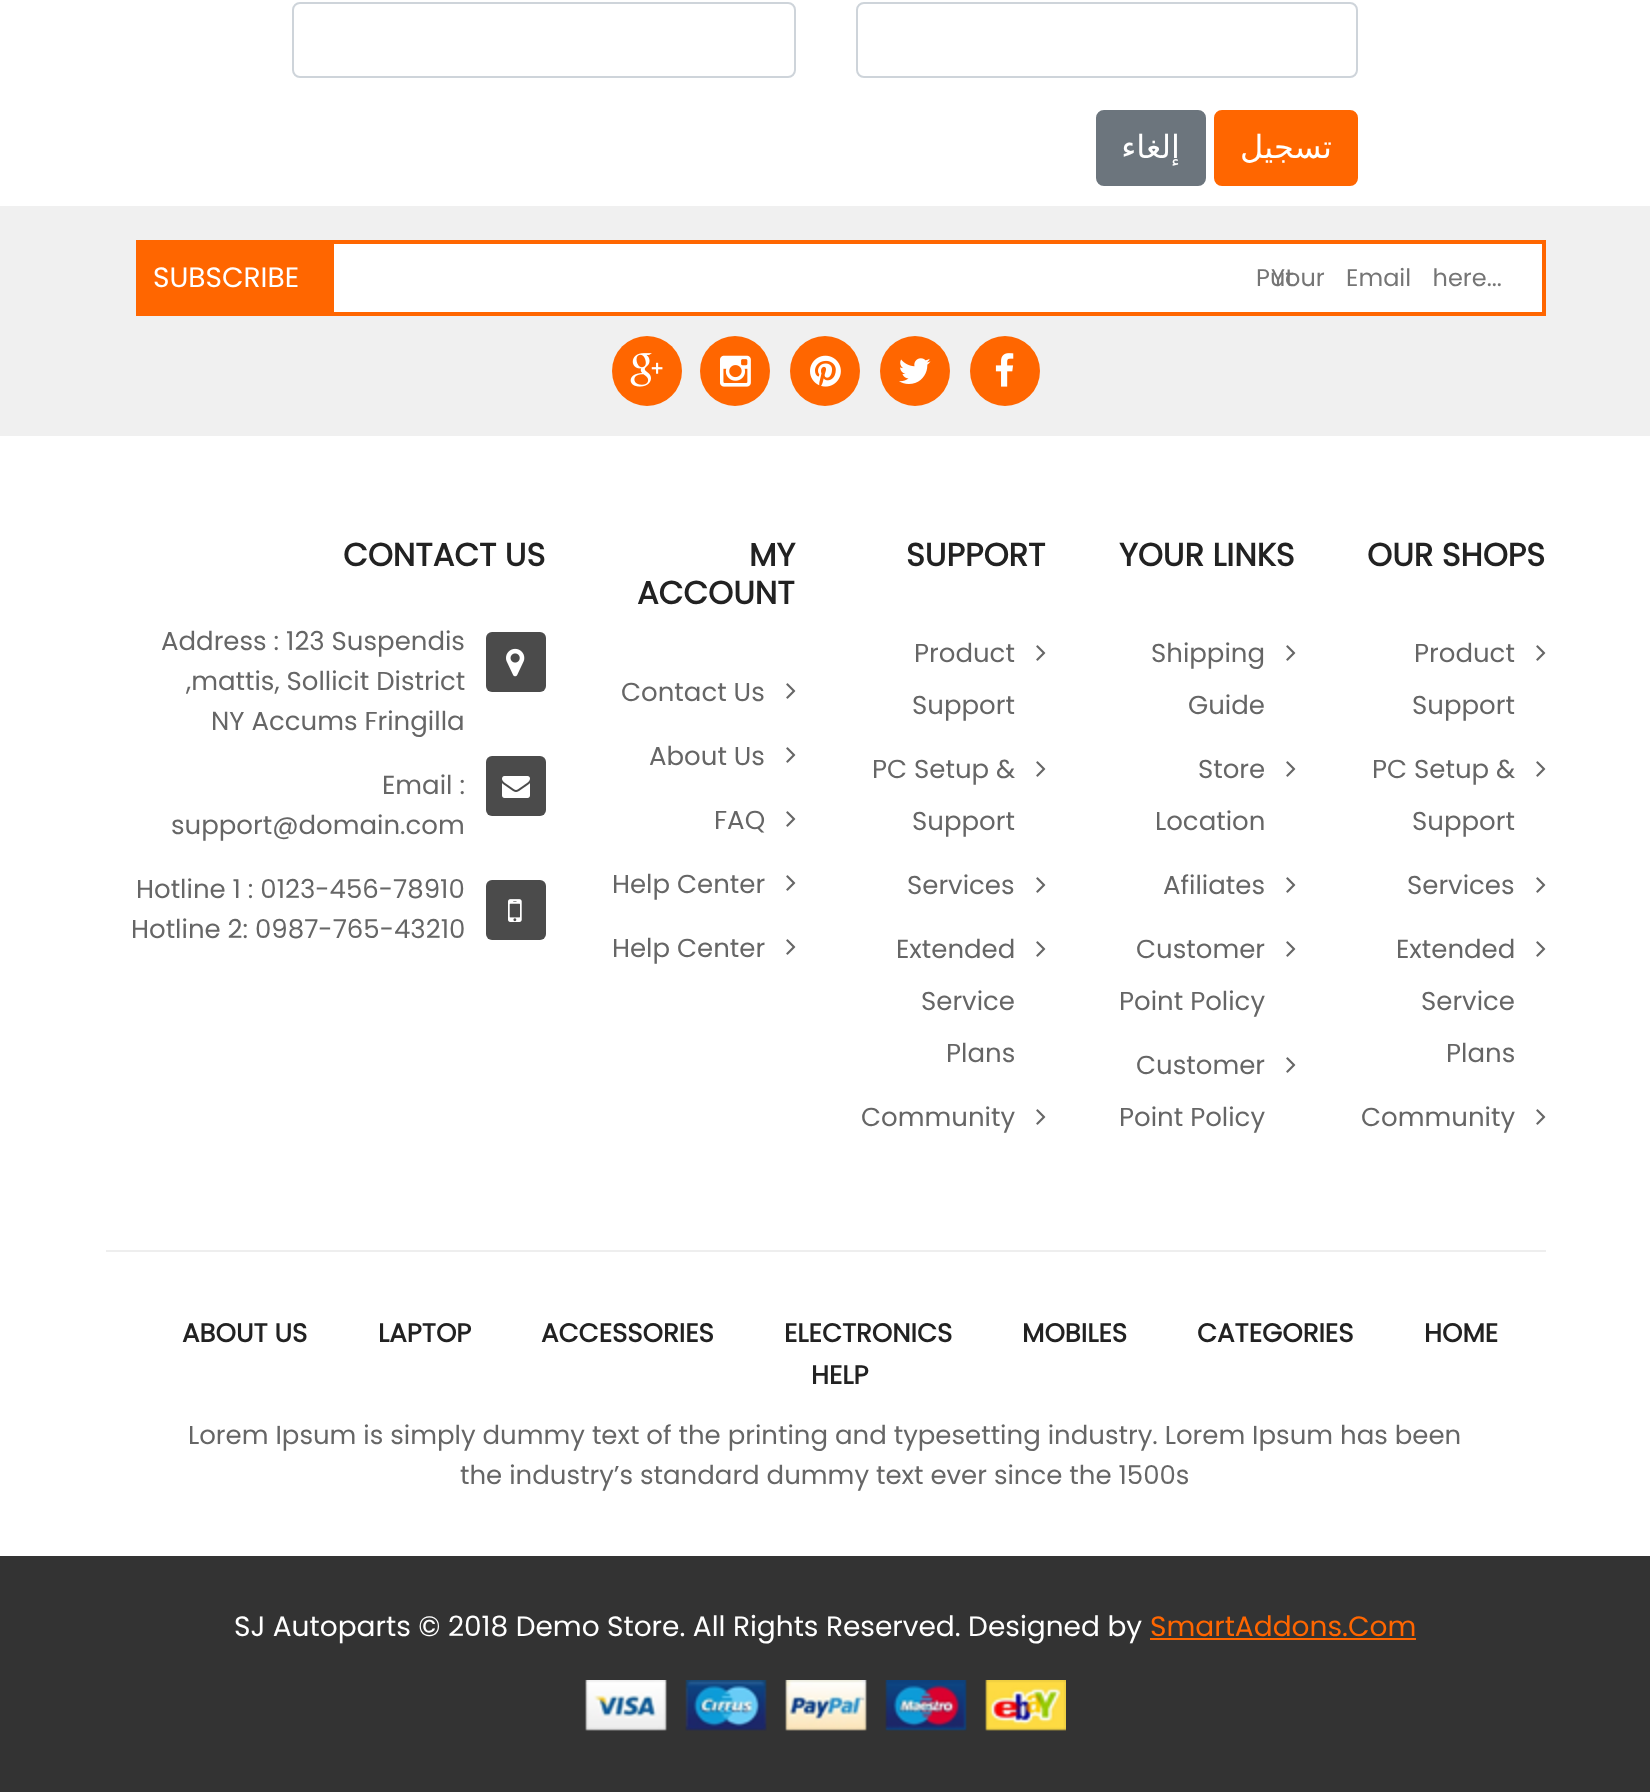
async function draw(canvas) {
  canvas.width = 1650;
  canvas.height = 1792;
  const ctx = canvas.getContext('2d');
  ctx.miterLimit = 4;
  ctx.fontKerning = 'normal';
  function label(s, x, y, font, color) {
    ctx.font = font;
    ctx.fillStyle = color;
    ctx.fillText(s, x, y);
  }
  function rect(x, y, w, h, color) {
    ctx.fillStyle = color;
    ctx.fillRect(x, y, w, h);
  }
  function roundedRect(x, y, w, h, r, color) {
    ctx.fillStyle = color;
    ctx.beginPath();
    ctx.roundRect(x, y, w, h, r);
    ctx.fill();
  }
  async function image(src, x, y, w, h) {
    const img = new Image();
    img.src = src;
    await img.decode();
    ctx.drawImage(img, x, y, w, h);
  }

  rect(0, 0, 1650, 1792, '#fff');
  ctx.beginPath();
  ctx.roundRect(293, 3, 502, 74, 7);
  ctx.strokeStyle = '#ced4da';
  ctx.lineWidth = 2;
  ctx.stroke();
  ctx.beginPath();
  ctx.roundRect(857, 3, 500, 74, 7);
  ctx.stroke();
  ctx.fillStyle = '#6c757d';
  ctx.beginPath();
  ctx.roundRect(1097, 111, 108, 74, 7);
  ctx.fill();
  ctx.strokeStyle = '#6c757d';
  ctx.stroke();
  ctx.direction = 'rtl';
  label('إلغاء', 1180, 158, '32px DejaVu Sans', '#fff');
  ctx.fillStyle = '#f60';
  ctx.beginPath();
  ctx.roundRect(1215, 111, 142, 74, 7);
  ctx.fill();
  ctx.strokeStyle = '#f60';
  ctx.stroke();
  label('تسجيل', 1332, 158, '32px DejaVu Sans', '#fff');
  rect(0, 206, 1650, 230, '#f0f0f0');
  rect(334, 244, 1208, 68, '#fff');
  ctx.lineWidth = 4;
  ctx.strokeRect(328, 242, 1216, 72);
  rect(136, 240, 198, 76, '#f60');
  ctx.direction = 'ltr';
  label('SUBSCRIBE', 153, 287, '28px Poppins', '#fff');
  label('Put', 1256, 286, '24px Poppins', '#757575');
  ctx.wordSpacing = '15px';
  label('Your Email here...', 1271, 286, '24px Poppins', '#757575');
  ctx.fillStyle = '#f60';
  ctx.beginPath();
  ctx.arc(647, 371, 35, 0, 2 * Math.PI);
  ctx.fill();
  await image('assets/img1.png', 630, 353, 33, 34);
  ctx.beginPath();
  ctx.arc(735, 371, 35, 0, 2 * Math.PI);
  ctx.fill();
  await image('assets/img2.png', 720, 355, 31, 32);
  ctx.beginPath();
  ctx.arc(825, 371, 35, 0, 2 * Math.PI);
  ctx.fill();
  await image('assets/img3.png', 810, 355, 31, 32);
  ctx.beginPath();
  ctx.arc(915, 371, 35, 0, 2 * Math.PI);
  ctx.fill();
  await image('assets/img4.png', 899, 358, 32, 26);
  ctx.beginPath();
  ctx.arc(1005, 371, 35, 0, 2 * Math.PI);
  ctx.fill();
  await image('assets/img5.png', 995, 353, 19, 34);
  ctx.wordSpacing = '0px';
  label('CONTACT US', 343, 566, 'bold 32px Poppins', '#222');
  label('Address : 123 Suspendis', 161, 650, '26px Poppins', '#666');
  roundedRect(486, 632, 60, 60, 6, '#4b4b4b');
  await image('assets/img6.png', 506, 648, 19, 29);
  label(',mattis, Sollicit District', 186, 690, '26px Poppins', '#666');
  label('NY Accums Fringilla', 211, 730, '26px Poppins', '#666');
  label('Email :', 382, 794, '26px Poppins', '#666');
  roundedRect(486, 756, 60, 60, 6, '#4b4b4b');
  await image('assets/img7.png', 502, 776, 28, 22);
  label('support@domain.com', 171, 834, '26px Poppins', '#666');
  label('Hotline 1 : 0123-456-78910', 136, 898, '26px Poppins', '#666');
  roundedRect(486, 880, 60, 60, 6, '#4b4b4b');
  await image('assets/img8.png', 508, 899, 14, 23);
  label('Hotline 2: 0987-765-43210', 131, 938, '26px Poppins', '#666');
  label('MY', 749, 566, 'bold 32px Poppins', '#222');
  label('ACCOUNT', 637, 604, 'bold 32px Poppins', '#222');
  label('Contact Us', 621, 701, '26px Poppins', '#666');
  await image('assets/img9.png', 786, 683, 10, 16);
  label('About Us', 649, 765, '26px Poppins', '#666');
  await image('assets/img9.png', 786, 747, 10, 16);
  label('FAQ', 714, 829, '26px Poppins', '#666');
  await image('assets/img9.png', 786, 811, 10, 16);
  label('Help Center', 612, 893, '26px Poppins', '#666');
  await image('assets/img9.png', 786, 875, 10, 16);
  label('Help Center', 612, 957, '26px Poppins', '#666');
  await image('assets/img9.png', 786, 939, 10, 16);
  label('SUPPORT', 906, 566, 'bold 32px Poppins', '#222');
  label('Product', 914, 662, '26px Poppins', '#666');
  label('Support', 912, 714, '26px Poppins', '#666');
  await image('assets/img9.png', 1036, 645, 10, 16);
  label('PC Setup &', 872, 778, '26px Poppins', '#666');
  label('Support', 912, 830, '26px Poppins', '#666');
  await image('assets/img9.png', 1036, 761, 10, 16);
  label('Services', 907, 894, '26px Poppins', '#666');
  await image('assets/img9.png', 1036, 877, 10, 16);
  label('Extended', 896, 958, '26px Poppins', '#666');
  label('Service', 921, 1010, '26px Poppins', '#666');
  label('Plans', 946, 1062, '26px Poppins', '#666');
  await image('assets/img9.png', 1036, 941, 10, 16);
  label('Community', 861, 1126, '26px Poppins', '#666');
  await image('assets/img9.png', 1036, 1109, 10, 16);
  label('YOUR LINKS', 1119, 566, 'bold 32px Poppins', '#222');
  label('Shipping', 1151, 662, '26px Poppins', '#666');
  label('Guide', 1188, 714, '26px Poppins', '#666');
  await image('assets/img9.png', 1286, 645, 10, 16);
  label('Store', 1198, 778, '26px Poppins', '#666');
  label('Location', 1155, 830, '26px Poppins', '#666');
  await image('assets/img9.png', 1286, 761, 10, 16);
  label('Afiliates', 1163, 894, '26px Poppins', '#666');
  await image('assets/img9.png', 1286, 877, 10, 16);
  label('Customer', 1136, 958, '26px Poppins', '#666');
  label('Point Policy', 1119, 1010, '26px Poppins', '#666');
  await image('assets/img9.png', 1286, 941, 10, 16);
  label('Customer', 1136, 1074, '26px Poppins', '#666');
  label('Point Policy', 1119, 1126, '26px Poppins', '#666');
  await image('assets/img9.png', 1286, 1057, 10, 16);
  label('OUR SHOPS', 1367, 566, 'bold 32px Poppins', '#222');
  label('Product', 1414, 662, '26px Poppins', '#666');
  label('Support', 1412, 714, '26px Poppins', '#666');
  await image('assets/img9.png', 1536, 645, 10, 16);
  label('PC Setup &', 1372, 778, '26px Poppins', '#666');
  label('Support', 1412, 830, '26px Poppins', '#666');
  await image('assets/img9.png', 1536, 761, 10, 16);
  label('Services', 1407, 894, '26px Poppins', '#666');
  await image('assets/img9.png', 1536, 877, 10, 16);
  label('Extended', 1396, 958, '26px Poppins', '#666');
  label('Service', 1421, 1010, '26px Poppins', '#666');
  label('Plans', 1446, 1062, '26px Poppins', '#666');
  await image('assets/img9.png', 1536, 941, 10, 16);
  label('Community', 1361, 1126, '26px Poppins', '#666');
  await image('assets/img9.png', 1536, 1109, 10, 16);
  rect(106, 1250, 1440, 2, '#eee');
  label('ABOUT US', 182, 1342, 'bold 26px Poppins', '#222');
  label('LAPTOP', 378, 1342, 'bold 26px Poppins', '#222');
  label('ACCESSORIES', 541, 1342, 'bold 26px Poppins', '#222');
  label('ELECTRONICS', 784, 1342, 'bold 26px Poppins', '#222');
  label('MOBILES', 1022, 1342, 'bold 26px Poppins', '#222');
  label('CATEGORIES', 1197, 1342, 'bold 26px Poppins', '#222');
  label('HOME', 1424, 1342, 'bold 26px Poppins', '#222');
  label('HELP', 811, 1384, 'bold 26px Poppins', '#222');
  label('Lorem Ipsum is simply dummy text of the printing and typesetting industry. Lorem Ipsum has been', 188, 1444, '26px Poppins', '#666');
  label('the industry’s standard dummy text ever since the 1500s', 460, 1484, '26px Poppins', '#666');
  rect(0, 1556, 1650, 236, '#333');
  label('SJ Autoparts © 2018 Demo Store. All Rights Reserved. Designed by', 234, 1636, '28px Poppins', '#fff');
  label('SmartAddons.Com', 1150, 1636, '28px Poppins', '#f60');
  rect(1150, 1638, 266, 2, '#f60');
  await image('assets/img10.png', 585, 1680, 481, 51);
}

draw(document.querySelector('canvas'));
